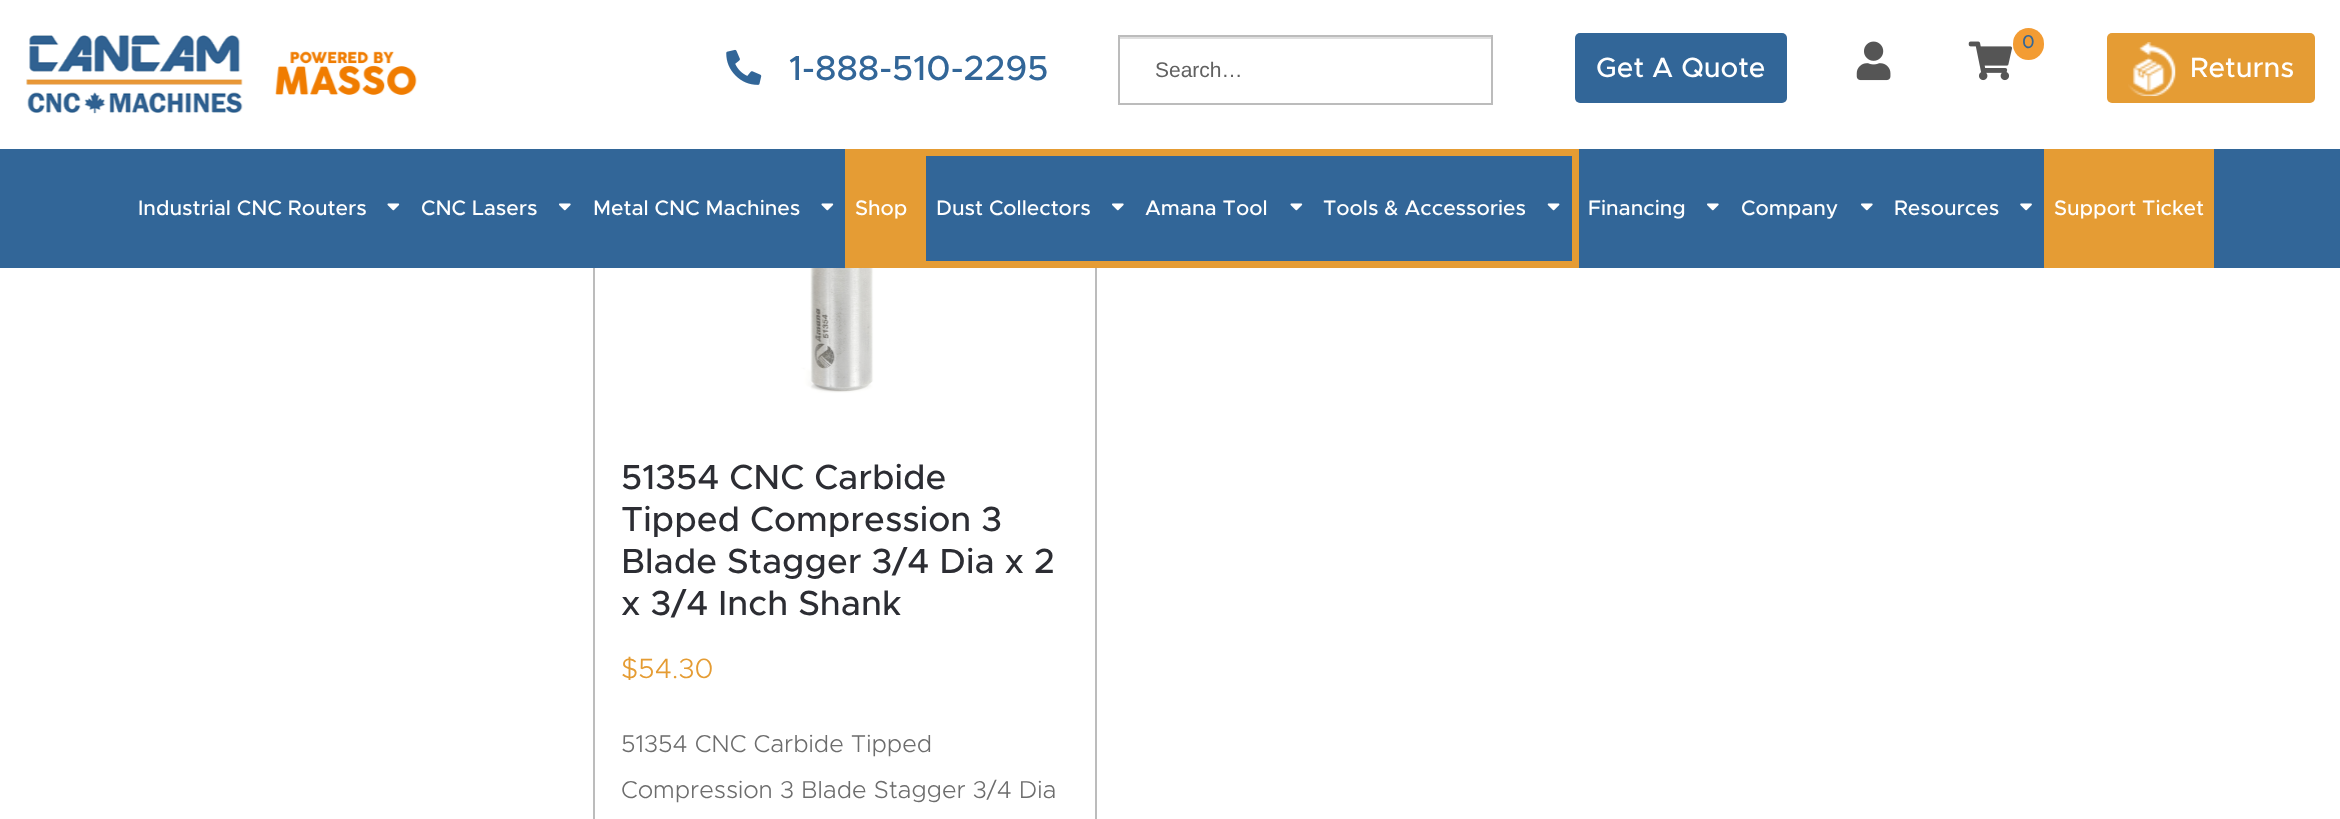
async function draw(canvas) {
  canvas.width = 2340;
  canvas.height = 819;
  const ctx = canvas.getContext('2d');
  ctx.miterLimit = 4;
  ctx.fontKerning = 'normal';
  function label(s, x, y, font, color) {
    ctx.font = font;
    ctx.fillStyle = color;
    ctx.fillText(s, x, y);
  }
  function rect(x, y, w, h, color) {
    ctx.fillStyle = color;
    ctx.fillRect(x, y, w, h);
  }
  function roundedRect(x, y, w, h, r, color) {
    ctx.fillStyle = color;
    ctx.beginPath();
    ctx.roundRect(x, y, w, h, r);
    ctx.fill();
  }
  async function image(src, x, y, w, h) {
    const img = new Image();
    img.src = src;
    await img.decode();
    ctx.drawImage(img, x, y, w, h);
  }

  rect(0, 0, 2340, 819, '#fff');
  ctx.strokeStyle = '#bcbcbc';
  ctx.lineWidth = 2;
  ctx.strokeRect(594, -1, 502, 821);
  rect(593, 0, 504, 149, '#fff');
  await image('assets/img1.png', 26, 35, 391, 79);
  await image('assets/img2.png', 726, 49, 36, 36);
  label('1-888-510-2295', 789, 80, '500 35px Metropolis', '#326698');
  rect(1120, 37, 371, 2, '#dfdfdf');
  ctx.strokeRect(1119, 36, 373, 68);
  label('Search…', 1155, 77, '21px Liberation Sans', '#616161');
  roundedRect(1575, 33, 212, 70, 5, '#326698');
  label('Get A Quote', 1596, 77, '500 28px Metropolis', '#fff');
  await image('assets/img3.png', 1856, 41, 35, 40);
  await image('assets/img4.png', 1968, 41, 44, 40);
  roundedRect(2013, 28, 31, 32, 15.5, '#f39c33');
  label('0', 2022, 48, 'bold 18px Metropolis', '#326698');
  roundedRect(2107, 33, 208, 70, 5, '#e59c34');
  await image('assets/img5.png', 2128, 42, 48, 55);
  label('Returns', 2190, 77, '500 28px Metropolis', '#fff');
  rect(0, 149, 2340, 119, '#326698');
  label('Industrial CNC Routers', 138, 215, '500 21px Metropolis', '#fff');
  await image('assets/img6.png', 387, 203, 13, 8);
  label('CNC Lasers', 421, 215, '500 21px Metropolis', '#fff');
  await image('assets/img7.png', 559, 203, 12, 8);
  label('Metal CNC Machines', 593, 215, '500 21px Metropolis', '#fff');
  await image('assets/img6.png', 821, 203, 13, 8);
  rect(919, 149, 660, 7, '#e59c34');
  rect(919, 261, 394, 7, '#e59c34');
  rect(845, 149, 81, 119, '#e59c34');
  label('Shop', 855, 215, '500 21px Metropolis', '#fff');
  label('Dust Collectors', 936, 215, '500 21px Metropolis', '#fff');
  await image('assets/img7.png', 1112, 203, 12, 8);
  label('Amana Tool', 1145, 215, '500 21px Metropolis', '#fff');
  await image('assets/img6.png', 1290, 203, 13, 8);
  rect(1572, 149, 7, 119, '#e59c34');
  rect(1313, 261, 266, 7, '#e59c34');
  label('Tools & Accessories', 1323, 215, '500 21px Metropolis', '#fff');
  await image('assets/img8.png', 1547, 203, 13, 8);
  label('Financing', 1588, 215, '500 21px Metropolis', '#fff');
  await image('assets/img7.png', 1707, 203, 12, 8);
  label('Company', 1741, 215, '500 21px Metropolis', '#fff');
  await image('assets/img7.png', 1861, 203, 12, 8);
  label('Resources', 1894, 215, '500 21px Metropolis', '#fff');
  await image('assets/img9.png', 2020, 203, 12, 8);
  rect(2044, 149, 170, 119, '#e59c34');
  label('Support Ticket', 2054, 215, '500 21px Metropolis', '#fff');
  await image('assets/img10.png', 646, 268, 228, 125);
  label('51354 CNC Carbide', 621, 489, '500 35px Metropolis', '#2c2d33');
  label('Tipped Compression 3', 621, 531, '500 35px Metropolis', '#2c2d33');
  label('Blade Stagger 3/4 Dia x 2', 621, 573, '500 35px Metropolis', '#2c2d33');
  label('x 3/4 Inch Shank', 621, 615, '500 35px Metropolis', '#2c2d33');
  label('$54.30', 621, 678, '300 28px Metropolis', '#e59c33');
  label('51354 CNC Carbide Tipped', 621, 752, '300 24.5px Metropolis', '#6d6d6d');
  label('Compression 3 Blade Stagger 3/4 Dia', 621, 798, '300 24.5px Metropolis', '#6d6d6d');
}

draw(document.querySelector('canvas'));
